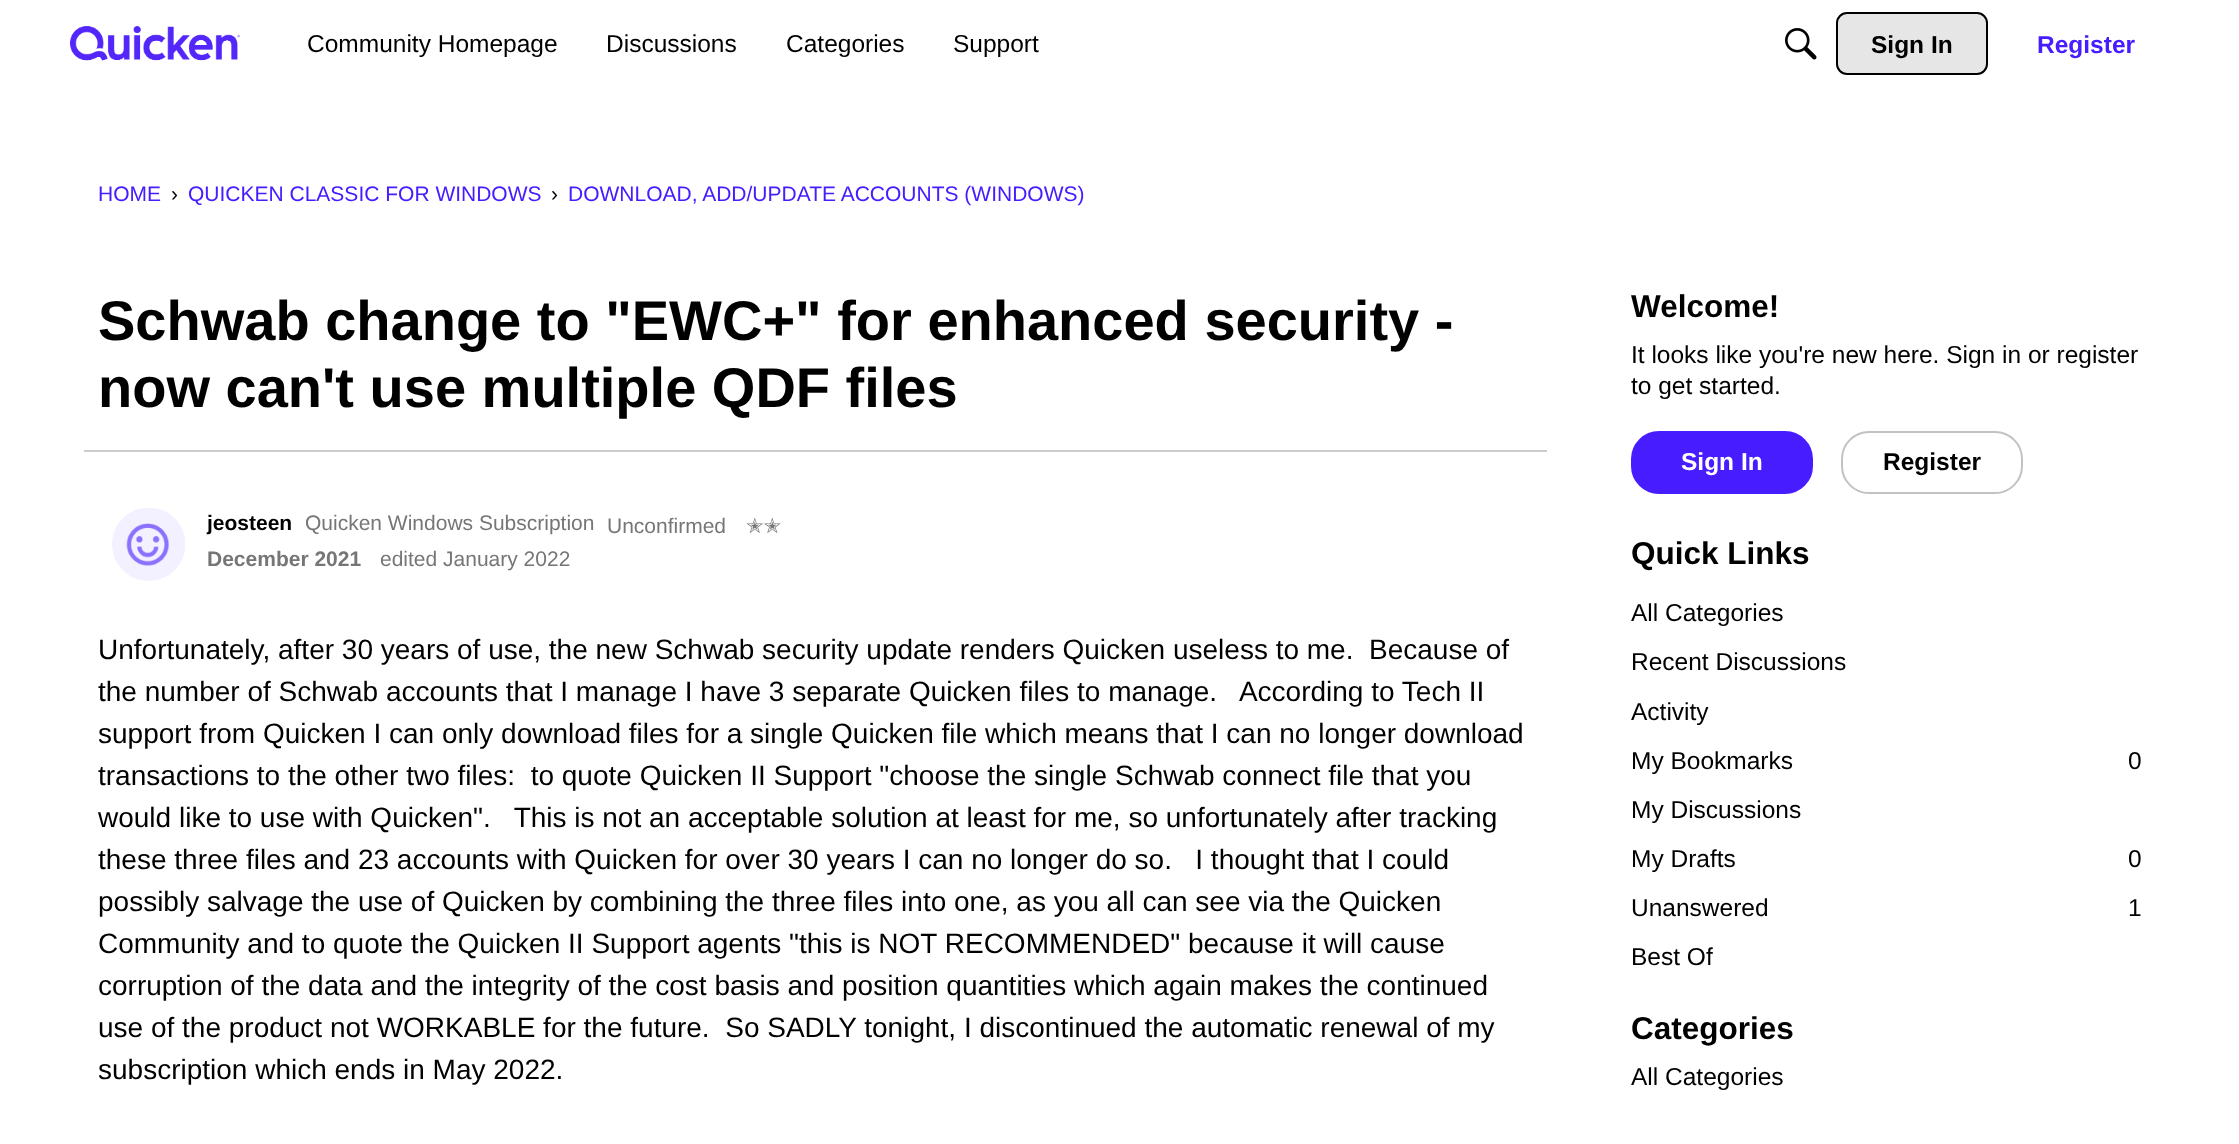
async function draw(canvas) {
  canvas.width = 2239;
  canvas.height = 1144;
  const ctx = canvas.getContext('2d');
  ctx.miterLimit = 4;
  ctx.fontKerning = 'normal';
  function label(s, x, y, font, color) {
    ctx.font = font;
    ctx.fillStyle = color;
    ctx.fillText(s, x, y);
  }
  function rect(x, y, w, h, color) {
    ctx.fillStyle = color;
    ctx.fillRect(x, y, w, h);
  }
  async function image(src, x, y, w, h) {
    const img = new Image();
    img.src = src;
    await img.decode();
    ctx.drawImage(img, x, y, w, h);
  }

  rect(0, 0, 2239, 1144, '#fff');
  await image('assets/img1.png', 70, 26, 170, 35);
  label('Community Homepage', 307, 52, '24.5px Liberation Sans', '#000');
  label('Discussions', 606, 52, '24.5px Liberation Sans', '#000');
  label('Categories', 786, 52, '24.5px Liberation Sans', '#000');
  label('Support', 953, 52, '24.5px Liberation Sans', '#000');
  await image('assets/img2.png', 1785, 28, 32, 32);
  ctx.fillStyle = '#e6e6e6';
  ctx.beginPath();
  ctx.roundRect(1837, 13, 150, 61, 10);
  ctx.fill();
  ctx.strokeStyle = '#000';
  ctx.lineWidth = 2;
  ctx.stroke();
  label('Sign In', 1871, 53, 'bold 24.5px Liberation Sans', '#000');
  label('Register', 2037, 53, 'bold 24.5px Liberation Sans', '#471cff');
  label('HOME', 98, 201, '21px Liberation Sans', '#471cff');
  label('›', 171, 201, '21px Liberation Sans', '#000');
  label('QUICKEN CLASSIC FOR WINDOWS', 188, 201, '21px Liberation Sans', '#471cff');
  label('›', 551, 201, '21px Liberation Sans', '#000');
  label('DOWNLOAD, ADD/UPDATE ACCOUNTS (WINDOWS)', 568, 201, '21px Liberation Sans', '#471cff');
  label('Schwab change to "EWC+" for enhanced security -', 98, 340, 'bold 56px Liberation Sans', '#000');
  label('now can\'t use multiple QDF files', 98, 407, 'bold 56px Liberation Sans', '#000');
  rect(84, 450, 1463, 2, '#ccc');
  await image('assets/img3.png', 112, 508, 73, 73);
  label('jeosteen', 207, 530, 'bold 21px Liberation Sans', '#000');
  label('Quicken Windows Subscription', 305, 530, '21px Liberation Sans', '#767676');
  label('Unconfirmed', 607, 533, '21px Liberation Sans', '#767676');
  label('✭✭', 746, 533, '21px DejaVu Sans', '#767676');
  label('December 2021', 207, 566, 'bold 21px Liberation Sans', '#767676');
  label('edited January 2022', 380, 566, '21px Liberation Sans', '#767676');
  label('Unfortunately, after 30 years of use, the new Schwab security update renders Quicken useless to me.  Because of', 98, 659, '28px Liberation Sans', '#000');
  label('the number of Schwab accounts that I manage I have 3 separate Quicken files to manage.   According to Tech II', 98, 701, '28px Liberation Sans', '#000');
  label('support from Quicken I can only download files for a single Quicken file which means that I can no longer download', 98, 743, '28px Liberation Sans', '#000');
  label('transactions to the other two files:  to quote Quicken II Support "choose the single Schwab connect file that you', 98, 785, '28px Liberation Sans', '#000');
  label('would like to use with Quicken".   This is not an acceptable solution at least for me, so unfortunately after tracking', 98, 827, '28px Liberation Sans', '#000');
  label('these three files and 23 accounts with Quicken for over 30 years I can no longer do so.   I thought that I could', 98, 869, '28px Liberation Sans', '#000');
  label('possibly salvage the use of Quicken by combining the three files into one, as you all can see via the Quicken', 98, 911, '28px Liberation Sans', '#000');
  label('Community and to quote the Quicken II Support agents "this is NOT RECOMMENDED" because it will cause', 98, 953, '28px Liberation Sans', '#000');
  label('corruption of the data and the integrity of the cost basis and position quantities which again makes the continued', 98, 995, '28px Liberation Sans', '#000');
  label('use of the product not WORKABLE for the future.  So SADLY tonight, I discontinued the automatic renewal of my', 98, 1037, '28px Liberation Sans', '#000');
  label('subscription which ends in May 2022.', 98, 1079, '28px Liberation Sans', '#000');
  label('Welcome!', 1631, 317, 'bold 31.5px Liberation Sans', '#000');
  label('It looks like you\'re new here. Sign in or register', 1631, 363, '24.5px Liberation Sans', '#000');
  label('to get started.', 1631, 394, '24.5px Liberation Sans', '#000');
  ctx.fillStyle = '#471cff';
  ctx.beginPath();
  ctx.roundRect(1632, 432, 180, 61, 27);
  ctx.fill();
  ctx.strokeStyle = '#471cff';
  ctx.stroke();
  label('Sign In', 1681, 470, 'bold 24.5px Liberation Sans', '#fff');
  ctx.beginPath();
  ctx.roundRect(1842, 432, 180, 61, 27);
  ctx.strokeStyle = '#c2c2c2';
  ctx.stroke();
  label('Register', 1883, 470, 'bold 24.5px Liberation Sans', '#000');
  label('Quick Links', 1631, 564, 'bold 31.5px Liberation Sans', '#000');
  label('All Categories', 1631, 621, '24.5px Liberation Sans', '#000');
  label('Recent Discussions', 1631, 670, '24.5px Liberation Sans', '#000');
  label('Activity', 1631, 720, '24.5px Liberation Sans', '#000');
  label('My Bookmarks', 1631, 769, '24.5px Liberation Sans', '#000');
  label('0', 2128, 769, '24.5px Liberation Sans', '#000');
  label('My Discussions', 1631, 818, '24.5px Liberation Sans', '#000');
  label('My Drafts', 1631, 867, '24.5px Liberation Sans', '#000');
  label('0', 2128, 867, '24.5px Liberation Sans', '#000');
  label('Unanswered', 1631, 916, '24.5px Liberation Sans', '#000');
  label('1', 2128, 916, '24.5px Liberation Sans', '#000');
  label('Best Of', 1631, 965, '24.5px Liberation Sans', '#000');
  label('Categories', 1631, 1039, 'bold 31.5px Liberation Sans', '#000');
  label('All Categories', 1631, 1085, '24.5px Liberation Sans', '#000');
}

draw(document.querySelector('canvas'));
